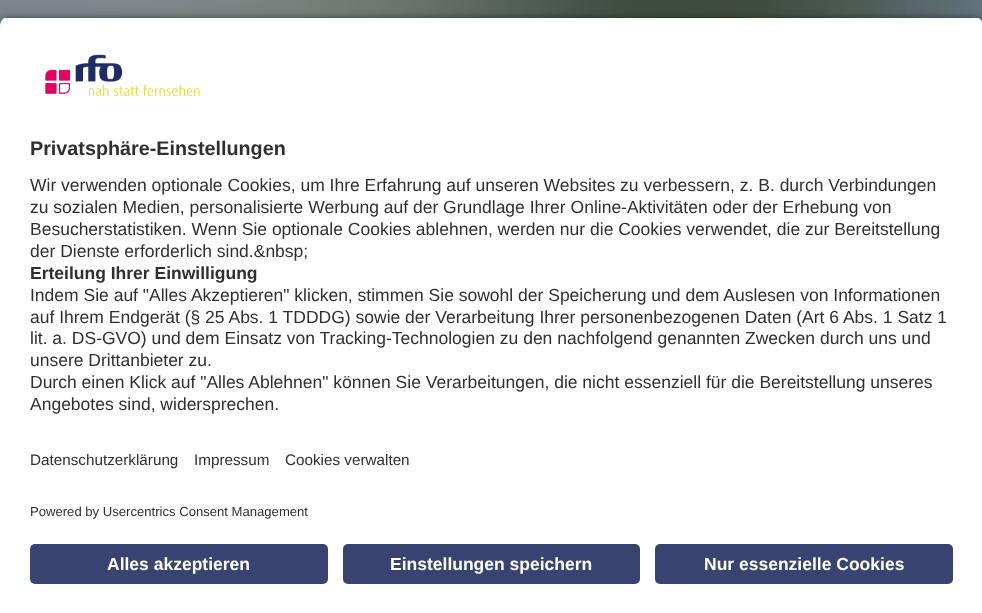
async function draw(canvas) {
  canvas.width = 982;
  canvas.height = 613;
  const ctx = canvas.getContext('2d');
  ctx.miterLimit = 4;
  ctx.fontKerning = 'normal';
  function label(s, x, y, font, color) {
    ctx.font = font;
    ctx.fillStyle = color;
    ctx.fillText(s, x, y);
  }
  function rect(x, y, w, h, color) {
    ctx.fillStyle = color;
    ctx.fillRect(x, y, w, h);
  }
  function roundedRect(x, y, w, h, r, color) {
    ctx.fillStyle = color;
    ctx.beginPath();
    ctx.roundRect(x, y, w, h, r);
    ctx.fill();
  }
  async function image(src, x, y, w, h) {
    const img = new Image();
    img.src = src;
    await img.decode();
    ctx.drawImage(img, x, y, w, h);
  }
  let path;

  rect(0, 0, 982, 613, '#fff');
  await image('assets/img1.png', 0, 0, 982, 26);
  rect(0, 0, 982, 26, '#00000040');
  ctx.fillStyle = '#000000cc';
  ctx.filter = 'blur(4.5px)';
  ctx.beginPath();
  ctx.roundRect(0, 20, 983, 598, 10);
  ctx.fill();
  ctx.filter = 'none';
  ctx.save();
  path = new Path2D('M10 16H973C978.5 16 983 20.5 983 26V416H0V26C0 20.5 4.5 16 10 16Z');
  ctx.clip(path);
  rect(0, 18, 982, 398, '#fff');
  ctx.restore();
  await image('assets/img2.png', 45, 54, 155, 43);
  label('Privatsphäre-Einstellungen', 30, 155, 'bold 19.75px Liberation Sans', '#303030');
  label('Wir verwenden optionale Cookies, um Ihre Erfahrung auf unseren Websites zu verbessern, z. B. durch Verbindungen', 30, 191, '17.5px Liberation Sans', '#303030');
  label('zu sozialen Medien, personalisierte Werbung auf der Grundlage Ihrer Online-Aktivitäten oder der Erhebung von', 30, 213, '17.5px Liberation Sans', '#303030');
  label('Besucherstatistiken. Wenn Sie optionale Cookies ablehnen, werden nur die Cookies verwendet, die zur Bereitstellung', 30, 235, '17.5px Liberation Sans', '#303030');
  label('der Dienste erforderlich sind.&nbsp;', 30, 257, '17.5px Liberation Sans', '#303030');
  label('Erteilung Ihrer Einwilligung', 30, 279, 'bold 17.5px Liberation Sans', '#303030');
  label('Indem Sie auf "Alles Akzeptieren" klicken, stimmen Sie sowohl der Speicherung und dem Auslesen von Informationen', 30, 301, '17.5px Liberation Sans', '#303030');
  label('auf Ihrem Endgerät (§ 25 Abs. 1 TDDDG) sowie der Verarbeitung Ihrer personenbezogenen Daten (Art 6 Abs. 1 Satz 1', 30, 323, '17.5px Liberation Sans', '#303030');
  label('lit. a. DS-GVO) und dem Einsatz von Tracking-Technologien zu den nachfolgend genannten Zwecken durch uns und', 30, 344, '17.5px Liberation Sans', '#303030');
  label('unsere Drittanbieter zu.', 30, 366, '17.5px Liberation Sans', '#303030');
  label('Durch einen Klick auf "Alles Ablehnen" können Sie Verarbeitungen, die nicht essenziell für die Bereitstellung unseres', 30, 388, '17.5px Liberation Sans', '#303030');
  label('Angebotes sind, widersprechen.', 30, 410, '17.5px Liberation Sans', '#303030');
  rect(0, 416, 982, 197, '#fff');
  label('Datenschutzerklärung', 30, 465, '15.25px Liberation Sans', '#303030');
  label('Impressum', 194, 465, '15.25px Liberation Sans', '#303030');
  label('Cookies verwalten', 285, 465, '15.25px Liberation Sans', '#303030');
  label('Powered by Usercentrics Consent Management', 30, 516, '13.1px Liberation Sans', '#303030');
  roundedRect(30, 544, 298, 40, 5, '#384372');
  label('Alles akzeptieren', 107, 570, 'bold 17.5px Liberation Sans', '#fff');
  roundedRect(343, 544, 297, 40, 5, '#384372');
  label('Einstellungen speichern', 390, 570, 'bold 17.5px Liberation Sans', '#fff');
  roundedRect(655, 544, 298, 40, 5, '#384372');
  label('Nur essenzielle Cookies', 704, 570, 'bold 17.5px Liberation Sans', '#fff');
}

draw(document.querySelector('canvas'));
